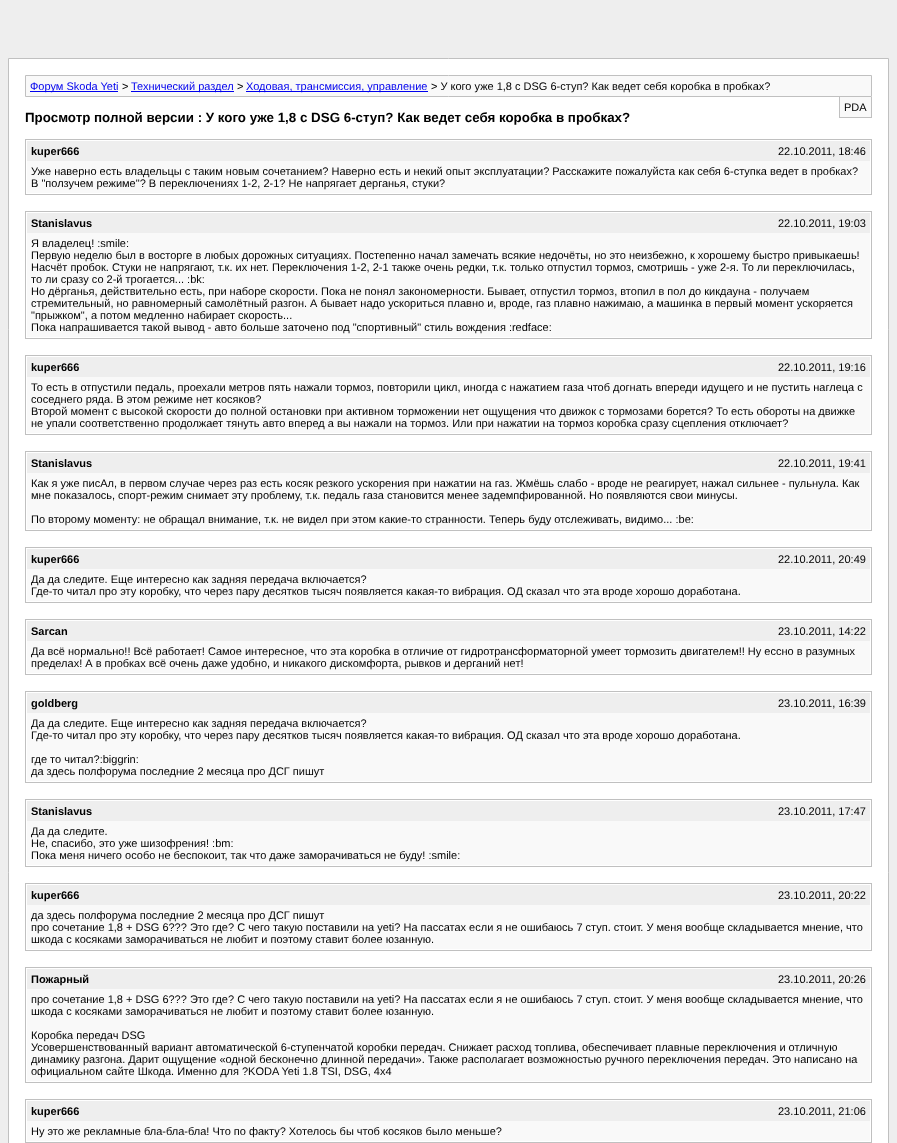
async function draw(canvas) {
  canvas.width = 897;
  canvas.height = 1143;
  const ctx = canvas.getContext('2d');
  ctx.miterLimit = 4;
  ctx.fontKerning = 'normal';
  function label(s, x, y, font, color) {
    ctx.font = font;
    ctx.fillStyle = color;
    ctx.fillText(s, x, y);
  }
  function rect(x, y, w, h, color) {
    ctx.fillStyle = color;
    ctx.fillRect(x, y, w, h);
  }

  rect(0, 0, 897, 1143, '#eee');
  ctx.fillStyle = '#fff';
  ctx.beginPath();
  ctx.rect(8.5, 58.5, 880, 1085);
  ctx.fill();
  ctx.strokeStyle = '#c0c0c0';
  ctx.stroke();
  ctx.fillStyle = '#f9f9f9';
  ctx.beginPath();
  ctx.rect(25.5, 75.5, 846, 21);
  ctx.fill();
  ctx.stroke();
  rect(30, 91, 88, 1, '#00e');
  label('Форум Skoda Yeti', 30, 90, '11px Liberation Sans', '#00e');
  label('>', 122, 90, '11px Liberation Sans', '#000');
  rect(131, 91, 103, 1, '#00e');
  label('Технический раздел', 131, 90, '11px Liberation Sans', '#00e');
  label('>', 237, 90, '11px Liberation Sans', '#000');
  rect(246, 91, 182, 1, '#00e');
  label('Ходовая, трансмиссия, управление', 246, 90, '11px Liberation Sans', '#00e');
  label('> У кого уже 1,8 с DSG 6-ступ? Как ведет себя коробка в пробках?', 431, 90, '11px Liberation Sans', '#000');
  rect(840, 97, 31, 20, '#f9f9f9');
  rect(871, 97, 1, 21, '#c0c0c0');
  rect(839, 117, 33, 1, '#c0c0c0');
  rect(839, 97, 1, 21, '#c0c0c0');
  label('PDA', 844, 111, '11px Liberation Sans', '#000');
  label('Просмотр полной версии : У кого уже 1,8 с DSG 6-ступ? Как ведет себя коробка в пробках?', 25, 122, 'bold 13.35px Liberation Sans', '#000');
  ctx.strokeRect(25.5, 139.5, 846, 55);
  rect(27, 141, 843, 20, '#eee');
  label('kuper666', 31, 155, 'bold 11px Liberation Sans', '#000');
  label('22.10.2011, 18:46', 778, 155, '11px Liberation Sans', '#000');
  rect(27, 161, 843, 32, '#f9f9f9');
  label('Уже наверно есть владельцы с таким новым сочетанием? Наверно есть и некий опыт эксплуатации? Расскажите пожалуйста как себя 6-ступка ведет в пробках?', 31, 175, '11px Liberation Sans', '#000');
  label('В "ползучем режиме"? В переключениях 1-2, 2-1? Не напрягает дерганья, стуки?', 31, 187, '11px Liberation Sans', '#000');
  ctx.strokeRect(25.5, 211.5, 846, 127);
  rect(27, 213, 843, 20, '#eee');
  label('Stanislavus', 31, 227, 'bold 11px Liberation Sans', '#000');
  label('22.10.2011, 19:03', 778, 227, '11px Liberation Sans', '#000');
  rect(27, 233, 843, 104, '#f9f9f9');
  label('Я владелец! :smile:', 31, 247, '11px Liberation Sans', '#000');
  label('Первую неделю был в восторге в любых дорожных ситуациях. Постепенно начал замечать всякие недочёты, но это неизбежно, к хорошему быстро привыкаешь!', 31, 259, '11px Liberation Sans', '#000');
  label('Насчёт пробок. Стуки не напрягают, т.к. их нет. Переключения 1-2, 2-1 также очень редки, т.к. только отпустил тормоз, смотришь - уже 2-я. То ли переключилась,', 31, 271, '11px Liberation Sans', '#000');
  label('то ли сразу со 2-й трогается... :bk:', 31, 283, '11px Liberation Sans', '#000');
  label('Но дёрганья, действительно есть, при наборе скорости. Пока не понял закономерности. Бывает, отпустил тормоз, втопил в пол до кикдауна - получаем', 31, 295, '11px Liberation Sans', '#000');
  label('стремительный, но равномерный самолётный разгон. А бывает надо ускориться плавно и, вроде, газ плавно нажимаю, а машинка в первый момент ускоряется', 31, 307, '11px Liberation Sans', '#000');
  label('"прыжком", а потом медленно набирает скорость...', 31, 319, '11px Liberation Sans', '#000');
  label('Пока напрашивается такой вывод - авто больше заточено под "спортивный" стиль вождения :redface:', 31, 331, '11px Liberation Sans', '#000');
  ctx.strokeRect(25.5, 355.5, 846, 79);
  rect(27, 357, 843, 20, '#eee');
  label('kuper666', 31, 371, 'bold 11px Liberation Sans', '#000');
  label('22.10.2011, 19:16', 778, 371, '11px Liberation Sans', '#000');
  rect(27, 377, 843, 56, '#f9f9f9');
  label('То есть в отпустили педаль, проехали метров пять нажали тормоз, повторили цикл, иногда с нажатием газа чтоб догнать впереди идущего и не пустить наглеца с', 31, 391, '11px Liberation Sans', '#000');
  label('соседнего ряда. В этом режиме нет косяков?', 31, 403, '11px Liberation Sans', '#000');
  label('Второй момент с высокой скорости до полной остановки при активном торможении нет ощущения что движок с тормозами борется? То есть обороты на движке', 31, 415, '11px Liberation Sans', '#000');
  label('не упали соответственно продолжает тянуть авто вперед а вы нажали на тормоз. Или при нажатии на тормоз коробка сразу сцепления отключает?', 31, 427, '11px Liberation Sans', '#000');
  ctx.strokeRect(25.5, 451.5, 846, 79);
  rect(27, 453, 843, 20, '#eee');
  label('Stanislavus', 31, 467, 'bold 11px Liberation Sans', '#000');
  label('22.10.2011, 19:41', 778, 467, '11px Liberation Sans', '#000');
  rect(27, 473, 843, 56, '#f9f9f9');
  label('Как я уже писАл, в первом случае через раз есть косяк резкого ускорения при нажатии на газ. Жмёшь слабо - вроде не реагирует, нажал сильнее - пульнула. Как', 31, 487, '11px Liberation Sans', '#000');
  label('мне показалось, спорт-режим снимает эту проблему, т.к. педаль газа становится менее задемпфированной. Но появляются свои минусы.', 31, 499, '11px Liberation Sans', '#000');
  label('По второму моменту: не обращал внимание, т.к. не видел при этом какие-то странности. Теперь буду отслеживать, видимо... :be:', 31, 523, '11px Liberation Sans', '#000');
  ctx.strokeRect(25.5, 547.5, 846, 55);
  rect(27, 549, 843, 20, '#eee');
  label('kuper666', 31, 563, 'bold 11px Liberation Sans', '#000');
  label('22.10.2011, 20:49', 778, 563, '11px Liberation Sans', '#000');
  rect(27, 569, 843, 32, '#f9f9f9');
  label('Да да следите. Еще интересно как задняя передача включается?', 31, 583, '11px Liberation Sans', '#000');
  label('Где-то читал про эту коробку, что через пару десятков тысяч появляется какая-то вибрация. ОД сказал что эта вроде хорошо доработана.', 31, 595, '11px Liberation Sans', '#000');
  ctx.strokeRect(25.5, 619.5, 846, 55);
  rect(27, 621, 843, 20, '#eee');
  label('Sarcan', 31, 635, 'bold 11px Liberation Sans', '#000');
  label('23.10.2011, 14:22', 778, 635, '11px Liberation Sans', '#000');
  rect(27, 641, 843, 32, '#f9f9f9');
  label('Да всё нормально!! Всё работает! Самое интересное, что эта коробка в отличие от гидротрансформаторной умеет тормозить двигателем!! Ну ессно в разумных', 31, 655, '11px Liberation Sans', '#000');
  label('пределах! А в пробках всё очень даже удобно, и никакого дискомфорта, рывков и дерганий нет!', 31, 667, '11px Liberation Sans', '#000');
  ctx.strokeRect(25.5, 691.5, 846, 91);
  rect(27, 693, 843, 20, '#eee');
  label('goldberg', 31, 707, 'bold 11px Liberation Sans', '#000');
  label('23.10.2011, 16:39', 778, 707, '11px Liberation Sans', '#000');
  rect(27, 713, 843, 68, '#f9f9f9');
  label('Да да следите. Еще интересно как задняя передача включается?', 31, 727, '11px Liberation Sans', '#000');
  label('Где-то читал про эту коробку, что через пару десятков тысяч появляется какая-то вибрация. ОД сказал что эта вроде хорошо доработана.', 31, 739, '11px Liberation Sans', '#000');
  label('где то читал?:biggrin:', 31, 763, '11px Liberation Sans', '#000');
  label('да здесь полфорума последние 2 месяца про ДСГ пишут', 31, 775, '11px Liberation Sans', '#000');
  ctx.strokeRect(25.5, 799.5, 846, 67);
  rect(27, 801, 843, 20, '#eee');
  label('Stanislavus', 31, 815, 'bold 11px Liberation Sans', '#000');
  label('23.10.2011, 17:47', 778, 815, '11px Liberation Sans', '#000');
  rect(27, 821, 843, 44, '#f9f9f9');
  label('Да да следите.', 31, 835, '11px Liberation Sans', '#000');
  label('Не, спасибо, это уже шизофрения! :bm:', 31, 847, '11px Liberation Sans', '#000');
  label('Пока меня ничего особо не беспокоит, так что даже заморачиваться не буду! :smile:', 31, 859, '11px Liberation Sans', '#000');
  ctx.strokeRect(25.5, 883.5, 846, 67);
  rect(27, 885, 843, 20, '#eee');
  label('kuper666', 31, 899, 'bold 11px Liberation Sans', '#000');
  label('23.10.2011, 20:22', 778, 899, '11px Liberation Sans', '#000');
  rect(27, 905, 843, 44, '#f9f9f9');
  label('да здесь полфорума последние 2 месяца про ДСГ пишут', 31, 919, '11px Liberation Sans', '#000');
  label('про сочетание 1,8 + DSG 6??? Это где? С чего такую поставили на yeti? На пассатах если я не ошибаюсь 7 ступ. стоит. У меня вообще складывается мнение, что', 31, 931, '11px Liberation Sans', '#000');
  label('шкода с косяками заморачиваться не любит и поэтому ставит более юзанную.', 31, 943, '11px Liberation Sans', '#000');
  ctx.strokeRect(25.5, 967.5, 846, 115);
  rect(27, 969, 843, 20, '#eee');
  label('Пожарный', 31, 983, 'bold 11px Liberation Sans', '#000');
  label('23.10.2011, 20:26', 778, 983, '11px Liberation Sans', '#000');
  rect(27, 989, 843, 92, '#f9f9f9');
  label('про сочетание 1,8 + DSG 6??? Это где? С чего такую поставили на yeti? На пассатах если я не ошибаюсь 7 ступ. стоит. У меня вообще складывается мнение, что', 31, 1003, '11px Liberation Sans', '#000');
  label('шкода с косяками заморачиваться не любит и поэтому ставит более юзанную.', 31, 1015, '11px Liberation Sans', '#000');
  label('Коробка передач DSG', 31, 1039, '11px Liberation Sans', '#000');
  label('Усовершенствованный вариант автоматической 6-ступенчатой коробки передач. Снижает расход топлива, обеспечивает плавные переключения и отличную', 31, 1051, '11px Liberation Sans', '#000');
  label('динамику разгона. Дарит ощущение «одной бесконечно длинной передачи». Также располагает возможностью ручного переключения передач. Это написано на', 31, 1063, '11px Liberation Sans', '#000');
  label('официальном сайте Шкода. Именно для ?KODA Yeti 1.8 TSI, DSG, 4x4', 31, 1075, '11px Liberation Sans', '#000');
  ctx.strokeRect(25.5, 1099.5, 846, 43);
  rect(27, 1101, 843, 20, '#eee');
  label('kuper666', 31, 1115, 'bold 11px Liberation Sans', '#000');
  label('23.10.2011, 21:06', 778, 1115, '11px Liberation Sans', '#000');
  rect(27, 1121, 843, 20, '#f9f9f9');
  label('Ну это же рекламные бла-бла-бла! Что по факту? Хотелось бы чтоб косяков было меньше?', 31, 1135, '11px Liberation Sans', '#000');
}

draw(document.querySelector('canvas'));
